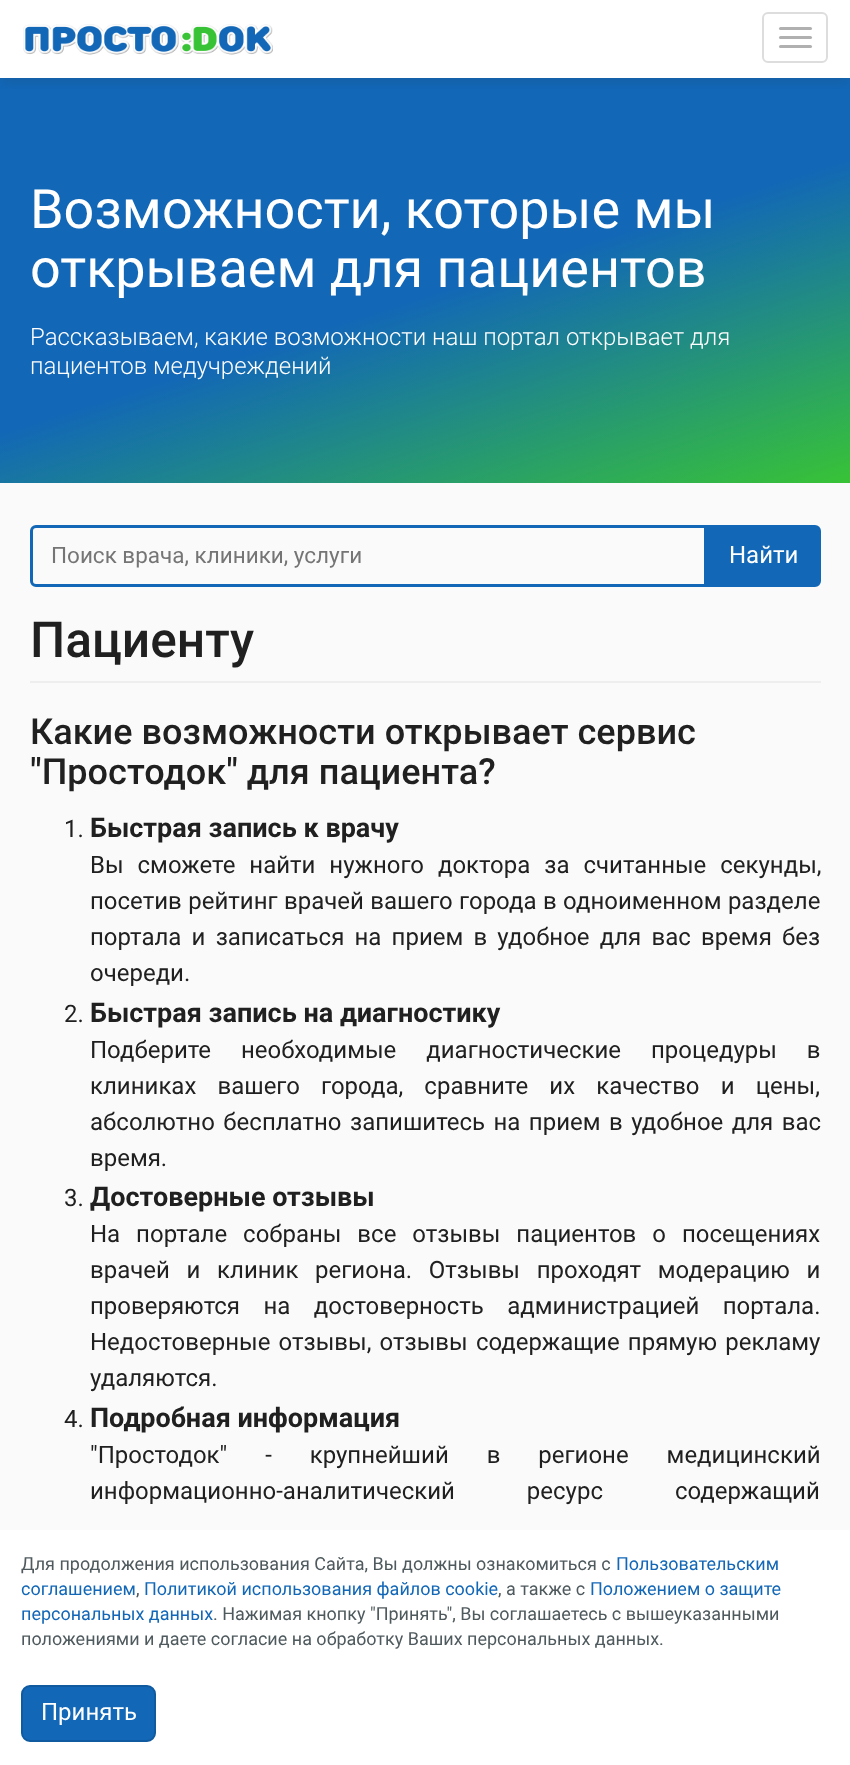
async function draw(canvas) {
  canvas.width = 850;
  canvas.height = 1765;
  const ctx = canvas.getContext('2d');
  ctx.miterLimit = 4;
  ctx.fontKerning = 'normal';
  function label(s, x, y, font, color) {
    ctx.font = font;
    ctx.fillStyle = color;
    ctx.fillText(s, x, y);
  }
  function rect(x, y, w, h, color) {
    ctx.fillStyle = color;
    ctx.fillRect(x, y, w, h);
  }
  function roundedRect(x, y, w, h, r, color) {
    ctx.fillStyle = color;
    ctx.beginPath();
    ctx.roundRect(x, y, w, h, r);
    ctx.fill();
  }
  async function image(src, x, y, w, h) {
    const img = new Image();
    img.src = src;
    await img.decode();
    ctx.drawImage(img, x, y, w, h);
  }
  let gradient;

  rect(0, 0, 850, 1765, '#fafafa');
  rect(0, 0, 850, 78, '#fff');
  gradient = ctx.createLinearGradient(325, -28, 525, 589);
  gradient.addColorStop(0.52, '#1267b7');
  gradient.addColorStop(1, '#38c336');
  ctx.fillStyle = gradient;
  ctx.fillRect(0, 78, 850, 405);
  ctx.save();
  ctx.beginPath();
  ctx.rect(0, 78, 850, 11);
  ctx.clip();
  ctx.fillStyle = '#223c5033';
  ctx.filter = 'blur(6px)';
  ctx.beginPath();
  ctx.rect(2, 6, 847, 75);
  ctx.fill();
  ctx.filter = 'none';
  ctx.restore();
  await image('assets/img1.png', 23, 24, 250, 31);
  ctx.beginPath();
  ctx.roundRect(763, 13, 64, 49, 5);
  ctx.strokeStyle = '#ddd';
  ctx.lineWidth = 2;
  ctx.stroke();
  roundedRect(779, 27, 33, 3, 1.5, '#b0b0b0');
  roundedRect(779, 36, 33, 3, 1.5, '#b0b0b0');
  roundedRect(779, 45, 33, 3, 1.5, '#b0b0b0');
  label('Возможности, которые мы', 30, 228, '54px Roboto', '#fff');
  label('открываем для пациентов', 30, 287, '54px Roboto', '#fff');
  label('Рассказываем, какие возможности наш портал открывает для', 30, 345, '300 24px Roboto', '#fff');
  label('пациентов медучреждений', 30, 374, '300 24px Roboto', '#fff');
  ctx.beginPath();
  ctx.roundRect(31.5, 526.5, 674, 59, [4.5, 0, 0, 4.5]);
  ctx.strokeStyle = '#1267b7';
  ctx.lineWidth = 3;
  ctx.stroke();
  label('Поиск врача, клиники, услуги', 51, 563, '22.5px Roboto', '#757575');
  ctx.fillStyle = '#1267b7';
  ctx.beginPath();
  ctx.roundRect(708, 526, 112, 60, [0, 5, 5, 0]);
  ctx.fill();
  ctx.lineWidth = 2;
  ctx.stroke();
  label('Найти', 729, 563, '24px Roboto', '#fff');
  rect(30, 681, 791, 2, '#eee');
  label('Пациенту', 30, 657, '500 49.5px Roboto', '#202020');
  label('Какие возможности открывает сервис', 30, 744, '500 36px Roboto', '#202020');
  label('"Простодок" для пациента?', 30, 784, '500 36px Roboto', '#202020');
  label('1.', 64, 837, '24px Roboto', '#202020');
  label('Быстрая запись к врачу', 90, 837, 'bold 27px Roboto', '#202020');
  ctx.wordSpacing = '8px';
  label('Вы сможете найти нужного доктора за считанные секунды,', 90, 873, '24px Roboto', '#202020');
  ctx.wordSpacing = '0.5px';
  label('посетив рейтинг врачей вашего города в одноименном разделе', 90, 909, '24px Roboto', '#202020');
  ctx.wordSpacing = '4.25px';
  label('портала и записаться на прием в удобное для вас время без', 90, 945, '24px Roboto', '#202020');
  ctx.wordSpacing = '0px';
  label('очереди.', 90, 981, '24px Roboto', '#202020');
  label('2.', 64, 1022, '24px Roboto', '#202020');
  label('Быстрая запись на диагностику', 90, 1022, 'bold 27px Roboto', '#202020');
  ctx.wordSpacing = '24px';
  label('Подберите необходимые диагностические процедуры в', 90, 1058, '24px Roboto', '#202020');
  ctx.wordSpacing = '15.25px';
  label('клиниках вашего города, сравните их качество и цены,', 90, 1094, '24px Roboto', '#202020');
  ctx.wordSpacing = '2.5px';
  label('абсолютно бесплатно запишитесь на прием в удобное для вас', 90, 1130, '24px Roboto', '#202020');
  ctx.wordSpacing = '0px';
  label('время.', 90, 1166, '24px Roboto', '#202020');
  label('3.', 64, 1206, '24px Roboto', '#202020');
  label('Достоверные отзывы', 90, 1206, 'bold 27px Roboto', '#202020');
  ctx.wordSpacing = '10px';
  label('На портале собраны все отзывы пациентов о посещениях', 90, 1242, '24px Roboto', '#202020');
  ctx.wordSpacing = '10.75px';
  label('врачей и клиник региона. Отзывы проходят модерацию и', 90, 1278, '24px Roboto', '#202020');
  ctx.wordSpacing = '17.5px';
  label('проверяются на достоверность администрацией портала.', 90, 1314, '24px Roboto', '#202020');
  ctx.wordSpacing = '2.25px';
  label('Недостоверные отзывы, отзывы содержащие прямую рекламу', 90, 1350, '24px Roboto', '#202020');
  ctx.wordSpacing = '0px';
  label('удаляются.', 90, 1386, '24px Roboto', '#202020');
  label('4.', 64, 1427, '24px Roboto', '#202020');
  label('Подробная информация', 90, 1427, 'bold 27px Roboto', '#202020');
  ctx.wordSpacing = '32px';
  label('"Простодок" - крупнейший в регионе медицинский', 90, 1463, '24px Roboto', '#202020');
  ctx.wordSpacing = '66px';
  label('информационно-аналитический ресурс содержащий', 90, 1499, '24px Roboto', '#202020');
  rect(0, 1530, 850, 235, '#fff');
  ctx.wordSpacing = '0px';
  label('Для продолжения использования Сайта, Вы должны ознакомиться с', 21, 1570, '18px Roboto', '#4f5a5e');
  label('Пользовательским', 616, 1570, '18px Roboto', '#1267b7');
  label('соглашением', 21, 1595, '18px Roboto', '#1267b7');
  label(',', 136, 1595, '18px Roboto', '#4f5a5e');
  label('Политикой использования файлов cookie', 144, 1595, '18px Roboto', '#1267b7');
  label(', а также с', 498, 1595, '18px Roboto', '#4f5a5e');
  label('Положением о защите', 590, 1595, '18px Roboto', '#1267b7');
  label('персональных данных', 21, 1620, '18px Roboto', '#1267b7');
  label('. Нажимая кнопку "Принять", Вы соглашаетесь с вышеуказанными', 213, 1620, '18px Roboto', '#4f5a5e');
  label('положениями и даете согласие на обработку Ваших персональных данных.', 21, 1645, '18px Roboto', '#4f5a5e');
  ctx.fillStyle = '#1267b7';
  ctx.beginPath();
  ctx.roundRect(22, 1686, 133, 55, 8);
  ctx.fill();
  ctx.strokeStyle = '#105aa0';
  ctx.stroke();
  label('Принять', 41, 1720, '24px Roboto', '#fff');
}

draw(document.querySelector('canvas'));
